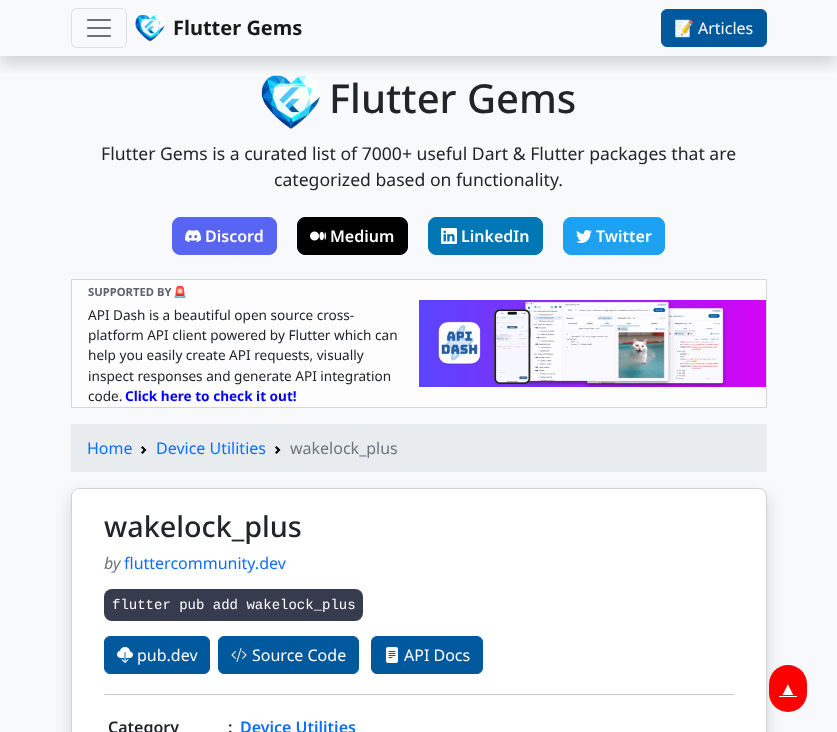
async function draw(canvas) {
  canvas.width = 837;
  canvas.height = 732;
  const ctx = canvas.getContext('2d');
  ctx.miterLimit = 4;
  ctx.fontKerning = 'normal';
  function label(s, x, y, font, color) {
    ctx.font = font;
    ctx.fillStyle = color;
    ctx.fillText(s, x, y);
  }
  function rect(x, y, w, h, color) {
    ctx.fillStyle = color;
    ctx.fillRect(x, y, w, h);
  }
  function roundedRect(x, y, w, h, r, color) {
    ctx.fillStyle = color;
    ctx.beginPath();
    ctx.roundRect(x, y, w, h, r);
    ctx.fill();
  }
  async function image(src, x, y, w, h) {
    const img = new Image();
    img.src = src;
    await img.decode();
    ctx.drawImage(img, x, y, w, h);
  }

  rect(0, 0, 837, 732, '#f8f9fa');
  await image('assets/img3.png', 261, 75, 59, 54);
  ctx.save();
  ctx.beginPath();
  ctx.rect(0, 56, 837, 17);
  ctx.clip();
  ctx.fillStyle = '#00000026';
  ctx.filter = 'blur(8px)';
  ctx.beginPath();
  ctx.rect(0, 8, 837, 56);
  ctx.fill();
  ctx.filter = 'none';
  ctx.restore();
  ctx.beginPath();
  ctx.roundRect(71.5, 8.5, 55, 39, 5.5);
  ctx.strokeStyle = '#dfe0e1';
  ctx.stroke();
  await image('assets/img1.png', 87, 19, 24, 18);
  await image('assets/img2.png', 135, 15, 30, 27);
  label('Flutter Gems', 173, 35, 'bold 20px Noto Sans', '#191919');
  ctx.fillStyle = '#00599d';
  ctx.beginPath();
  ctx.roundRect(661.5, 9.5, 105, 37, 5.5);
  ctx.fill();
  ctx.strokeStyle = '#00599d';
  ctx.stroke();
  label('📝', 674, 34, '16px Noto Color Emoji', '#fff');
  label('Articles', 698, 34, '16px Noto Sans', '#fff');
  label('Flutter Gems', 329, 113, '500 40px Noto Sans', '#212529');
  label('Flutter Gems is a curated list of 7000+ useful Dart & Flutter packages that are', 101, 160, '17.6px Noto Sans', '#212529');
  label('categorized based on functionality.', 274, 186, '17.6px Noto Sans', '#212529');
  ctx.fillStyle = '#5865f2';
  ctx.beginPath();
  ctx.roundRect(172.5, 217.5, 104, 37, 7.5);
  ctx.fill();
  ctx.strokeStyle = '#5865f2';
  ctx.stroke();
  await image('assets/img4.png', 185, 230, 16, 12);
  label('Discord', 205, 242, '600 16px Noto Sans', '#fff');
  ctx.fillStyle = '#000';
  ctx.beginPath();
  ctx.roundRect(297.5, 217.5, 110, 37, 7.5);
  ctx.fill();
  ctx.strokeStyle = '#000';
  ctx.stroke();
  await image('assets/img5.png', 310, 231, 16, 10);
  label('Medium', 330, 242, '600 16px Noto Sans', '#fff');
  ctx.fillStyle = '#0077b5';
  ctx.beginPath();
  ctx.roundRect(428.5, 217.5, 114, 37, 7.5);
  ctx.fill();
  ctx.strokeStyle = '#0077b5';
  ctx.stroke();
  await image('assets/img6.png', 441, 228, 16, 16);
  label('LinkedIn', 461, 242, '600 16px Noto Sans', '#fff');
  ctx.fillStyle = '#1da1f2';
  ctx.beginPath();
  ctx.roundRect(563.5, 217.5, 101, 37, 7.5);
  ctx.fill();
  ctx.strokeStyle = '#1da1f2';
  ctx.stroke();
  await image('assets/img7.png', 576, 230, 16, 13);
  label('Twitter', 596, 242, '600 16px Noto Sans', '#fff');
  ctx.fillStyle = '#fdfdfd';
  ctx.beginPath();
  ctx.rect(71.5, 279.5, 695, 128);
  ctx.fill();
  ctx.strokeStyle = '#d4d5d6';
  ctx.stroke();
  label('SUPPORTED BY', 88, 296, 'bold 11.25px Noto Sans', '#5d646b');
  label('🚨', 173, 296, 'bold 11.25px Noto Color Emoji', '#5d646b');
  label('API Dash is a beautiful open source cross-', 88, 320, '13.6px Noto Sans', '#212529');
  label('platform API client powered by Flutter which can', 88, 340, '13.6px Noto Sans', '#212529');
  label('help you easily create API requests, visually', 88, 360, '13.6px Noto Sans', '#212529');
  label('inspect responses and generate API integration', 88, 381, '13.6px Noto Sans', '#212529');
  label('code.', 88, 401, '13.6px Noto Sans', '#212529');
  label('Click here to check it out!', 125, 401, 'bold 13.6px Noto Sans', '#00f');
  await image('assets/img8.png', 419, 300, 347, 87);
  rect(71, 424, 696, 48, '#e9ecef');
  label('Home', 87, 454, '16px Noto Sans', '#0d6efd');
  await image('assets/img9.png', 141, 446, 6, 8);
  label('Device Utilities', 156, 454, '16px Noto Sans', '#0d6efd');
  await image('assets/img9.png', 275, 446, 6, 8);
  label('wakelock_plus', 290, 454, '16px Noto Sans', '#6c757d');
  ctx.fillStyle = '#00000026';
  ctx.filter = 'blur(8px)';
  ctx.beginPath();
  ctx.roundRect(71, 496, 696, 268, 8);
  ctx.fill();
  ctx.filter = 'none';
  roundedRect(71, 488, 696, 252, 8, '#fff');
  ctx.beginPath();
  ctx.roundRect(71.5, 488.5, 695, 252, 7.5);
  ctx.strokeStyle = '#0000002e';
  ctx.stroke();
  label('wakelock_plus', 104, 537, '500 28.75px Noto Sans', '#212529');
  label('by', 104, 569, 'italic 16px Noto Sans', '#6c757d');
  label('fluttercommunity.dev', 124, 569, '16px Noto Sans', '#0d6efd');
  roundedRect(104, 589, 259, 32, 8, '#373b4e');
  label('flutter pub add wakelock_plus', 112, 609, '14px Liberation Mono', '#fff');
  ctx.fillStyle = '#00599d';
  ctx.beginPath();
  ctx.roundRect(104.5, 636.5, 105, 37, 5.5);
  ctx.fill();
  ctx.strokeStyle = '#00599d';
  ctx.stroke();
  await image('assets/img10.png', 117, 647, 16, 16);
  label('pub.dev', 137, 661, '16px Noto Sans', '#fff');
  ctx.fillStyle = '#00599d';
  ctx.beginPath();
  ctx.roundRect(218.5, 636.5, 140, 37, 5.5);
  ctx.fill();
  ctx.stroke();
  await image('assets/img11.png', 231, 648, 16, 14);
  label('Source Code', 252, 661, '16px Noto Sans', '#fff');
  ctx.fillStyle = '#00599d';
  ctx.beginPath();
  ctx.roundRect(371.5, 636.5, 111, 37, 5.5);
  ctx.fill();
  ctx.stroke();
  await image('assets/img12.png', 385, 647, 14, 16);
  label('API Docs', 404, 661, '16px Noto Sans', '#fff');
  rect(104, 694, 630, 1, '#c8c9ca');
  label('Category', 108, 733, '600 16px Noto Sans', '#212529');
  label(':', 228, 733, '600 16px Noto Sans', '#212529');
  label('Device Utilities', 240, 733, '600 16px Noto Sans', '#0d6efd');
  roundedRect(769, 665, 38, 47, 19, '#f00');
  label('▲', 779, 695, '18px Liberation Sans', '#fff');
  rect(779, 696, 18, 1, '#fff');
}

draw(document.querySelector('canvas'));
